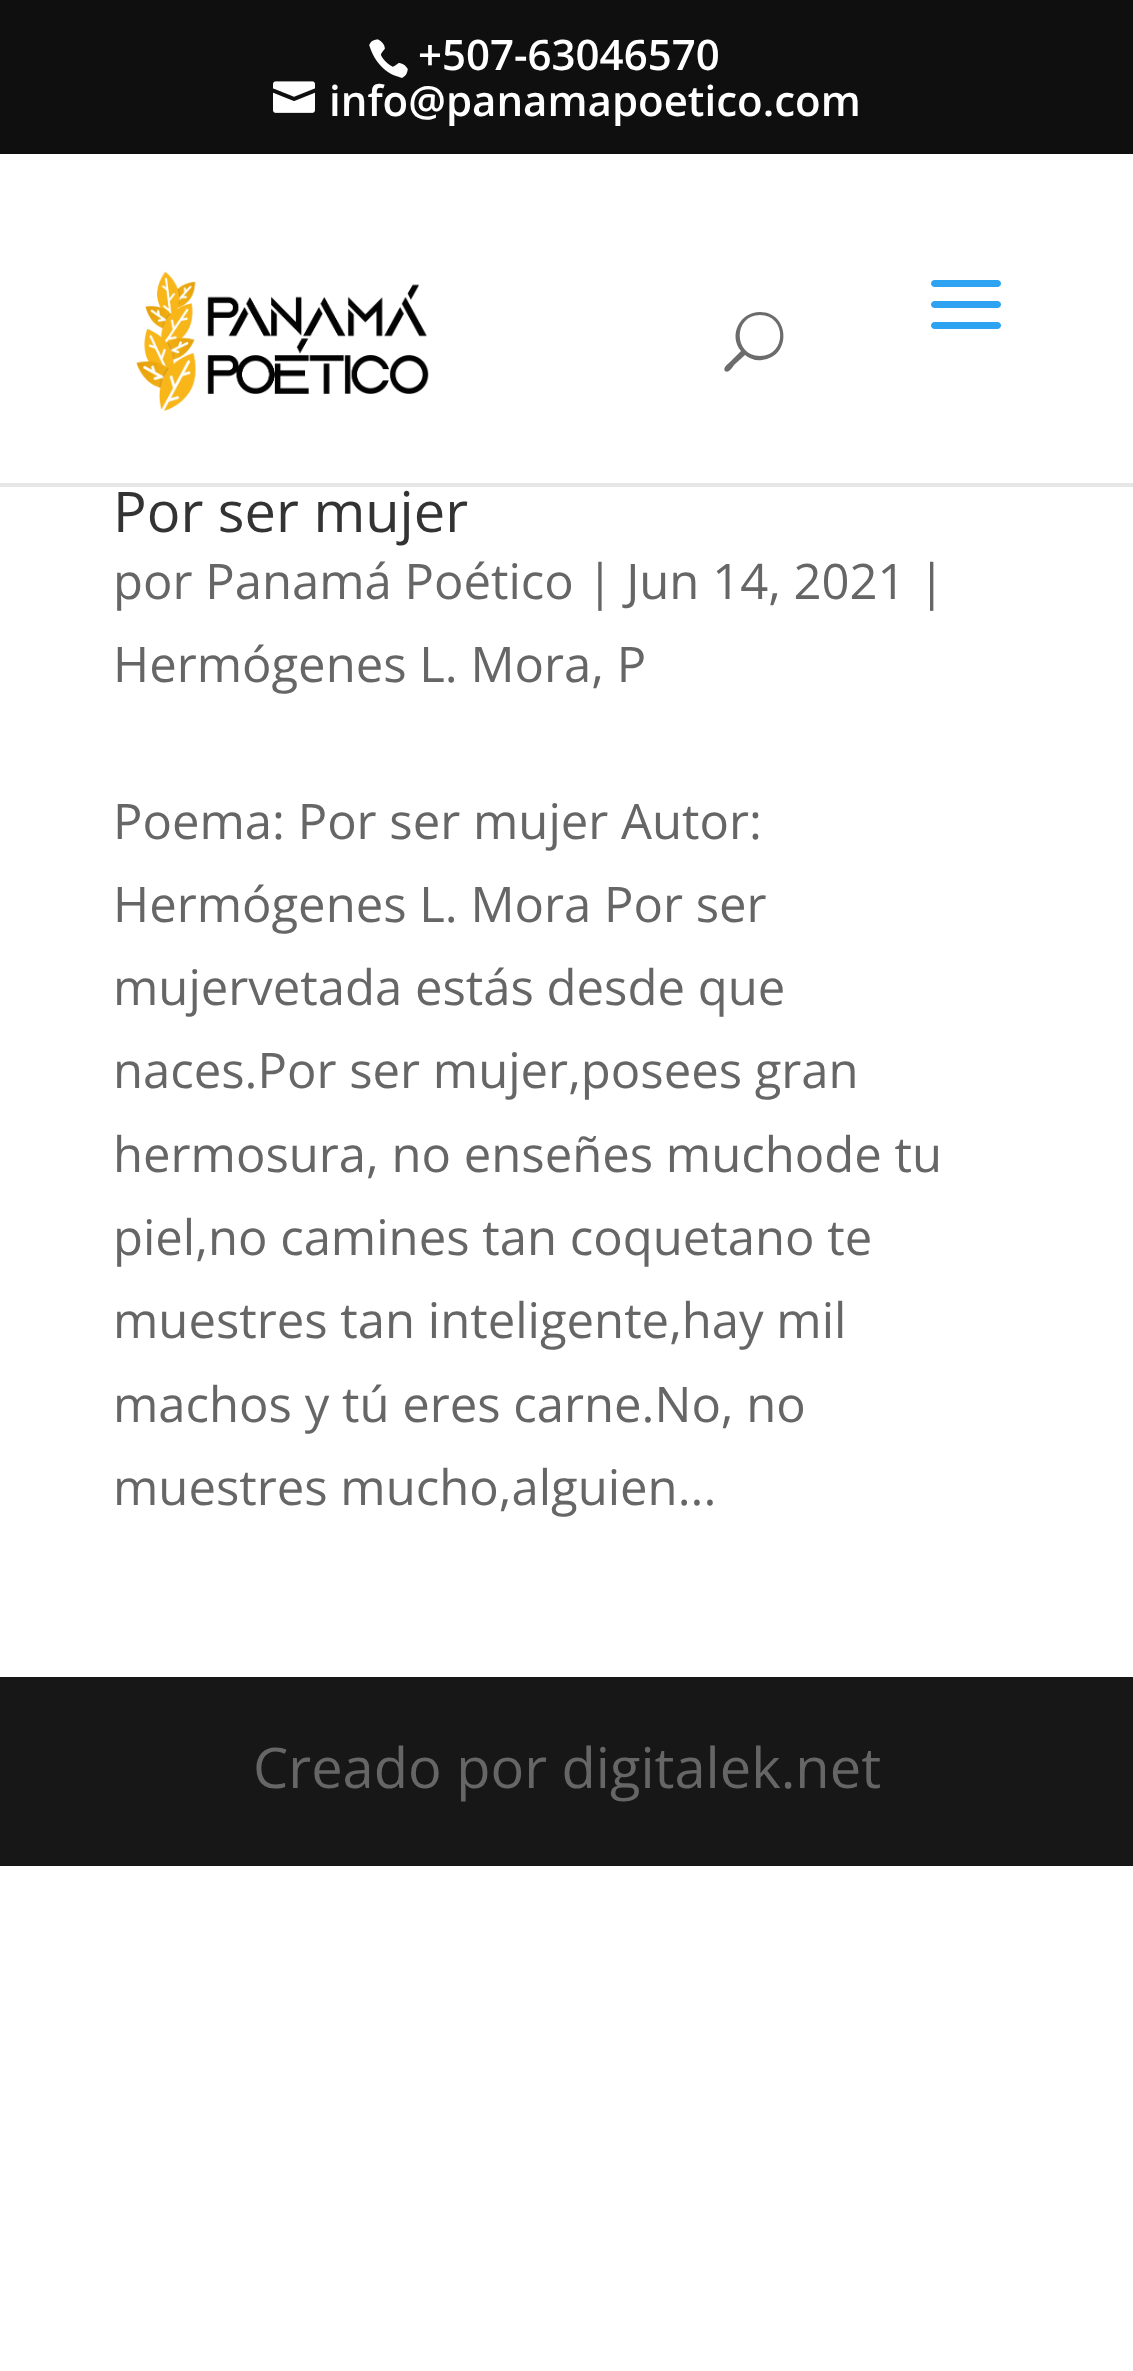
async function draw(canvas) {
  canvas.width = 1133;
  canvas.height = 2371;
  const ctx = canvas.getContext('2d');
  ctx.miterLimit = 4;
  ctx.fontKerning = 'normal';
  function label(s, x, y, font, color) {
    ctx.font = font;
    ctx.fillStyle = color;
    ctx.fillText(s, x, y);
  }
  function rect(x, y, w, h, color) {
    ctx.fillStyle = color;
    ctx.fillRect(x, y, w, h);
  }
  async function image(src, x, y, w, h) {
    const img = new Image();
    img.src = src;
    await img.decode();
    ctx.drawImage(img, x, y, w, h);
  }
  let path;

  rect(0, 0, 1133, 2371, '#fff');
  rect(0, 0, 1133, 154, '#0f0f0f');
  await image('assets/img1.png', 369, 39, 39, 39);
  label('+507-63046570', 418, 70, '600 42px Open Sans', '#fff');
  await image('assets/img2.png', 273, 81, 42, 32);
  label('info@panamapoetico.com', 329, 116, '600 42px Open Sans', '#fff');
  rect(0, 483, 1133, 4, '#e6e6e6');
  await image('assets/img3.png', 136, 271, 293, 140);
  await image('assets/img4.png', 931, 280, 70, 49);
  ctx.fillStyle = '#6c6c6c';
  path = new Path2D('M760 312C740 312 728 335 741 351L730 362C729 363 722 368 725 371C728 374 733 367 734 365L745 355C750 359 756 361 762 360C792 357 790 312 760 312ZM760 356C733 356 733 315 760 315C787 315 787 356 760 356Z');
  ctx.fill(path);
  label('Por ser mujer', 113, 532, '56px Open Sans', '#333');
  label('por Panamá Poético | Jun 14, 2021 |', 113, 599, '49px Open Sans', '#666');
  label('Hermógenes L. Mora, P', 113, 682, '49px Open Sans', '#666');
  label('Poema: Por ser mujer Autor:', 113, 839, '49px Open Sans', '#666');
  label('Hermógenes L. Mora Por ser', 113, 922, '49px Open Sans', '#666');
  label('mujervetada estás desde que', 113, 1005, '49px Open Sans', '#666');
  label('naces.Por ser mujer,posees gran', 113, 1088, '49px Open Sans', '#666');
  label('hermosura, no enseñes muchode tu', 113, 1172, '49px Open Sans', '#666');
  label('piel,no camines tan coquetano te', 113, 1255, '49px Open Sans', '#666');
  label('muestres tan inteligente,hay mil', 113, 1338, '49px Open Sans', '#666');
  label('machos y tú eres carne.No, no', 113, 1422, '49px Open Sans', '#666');
  label('muestres mucho,alguien...', 113, 1505, '49px Open Sans', '#666');
  rect(0, 1677, 1133, 189, '#171717');
  label('Creado por digitalek.net', 253, 1788, '56px Open Sans', '#666');
}

draw(document.querySelector('canvas'));
